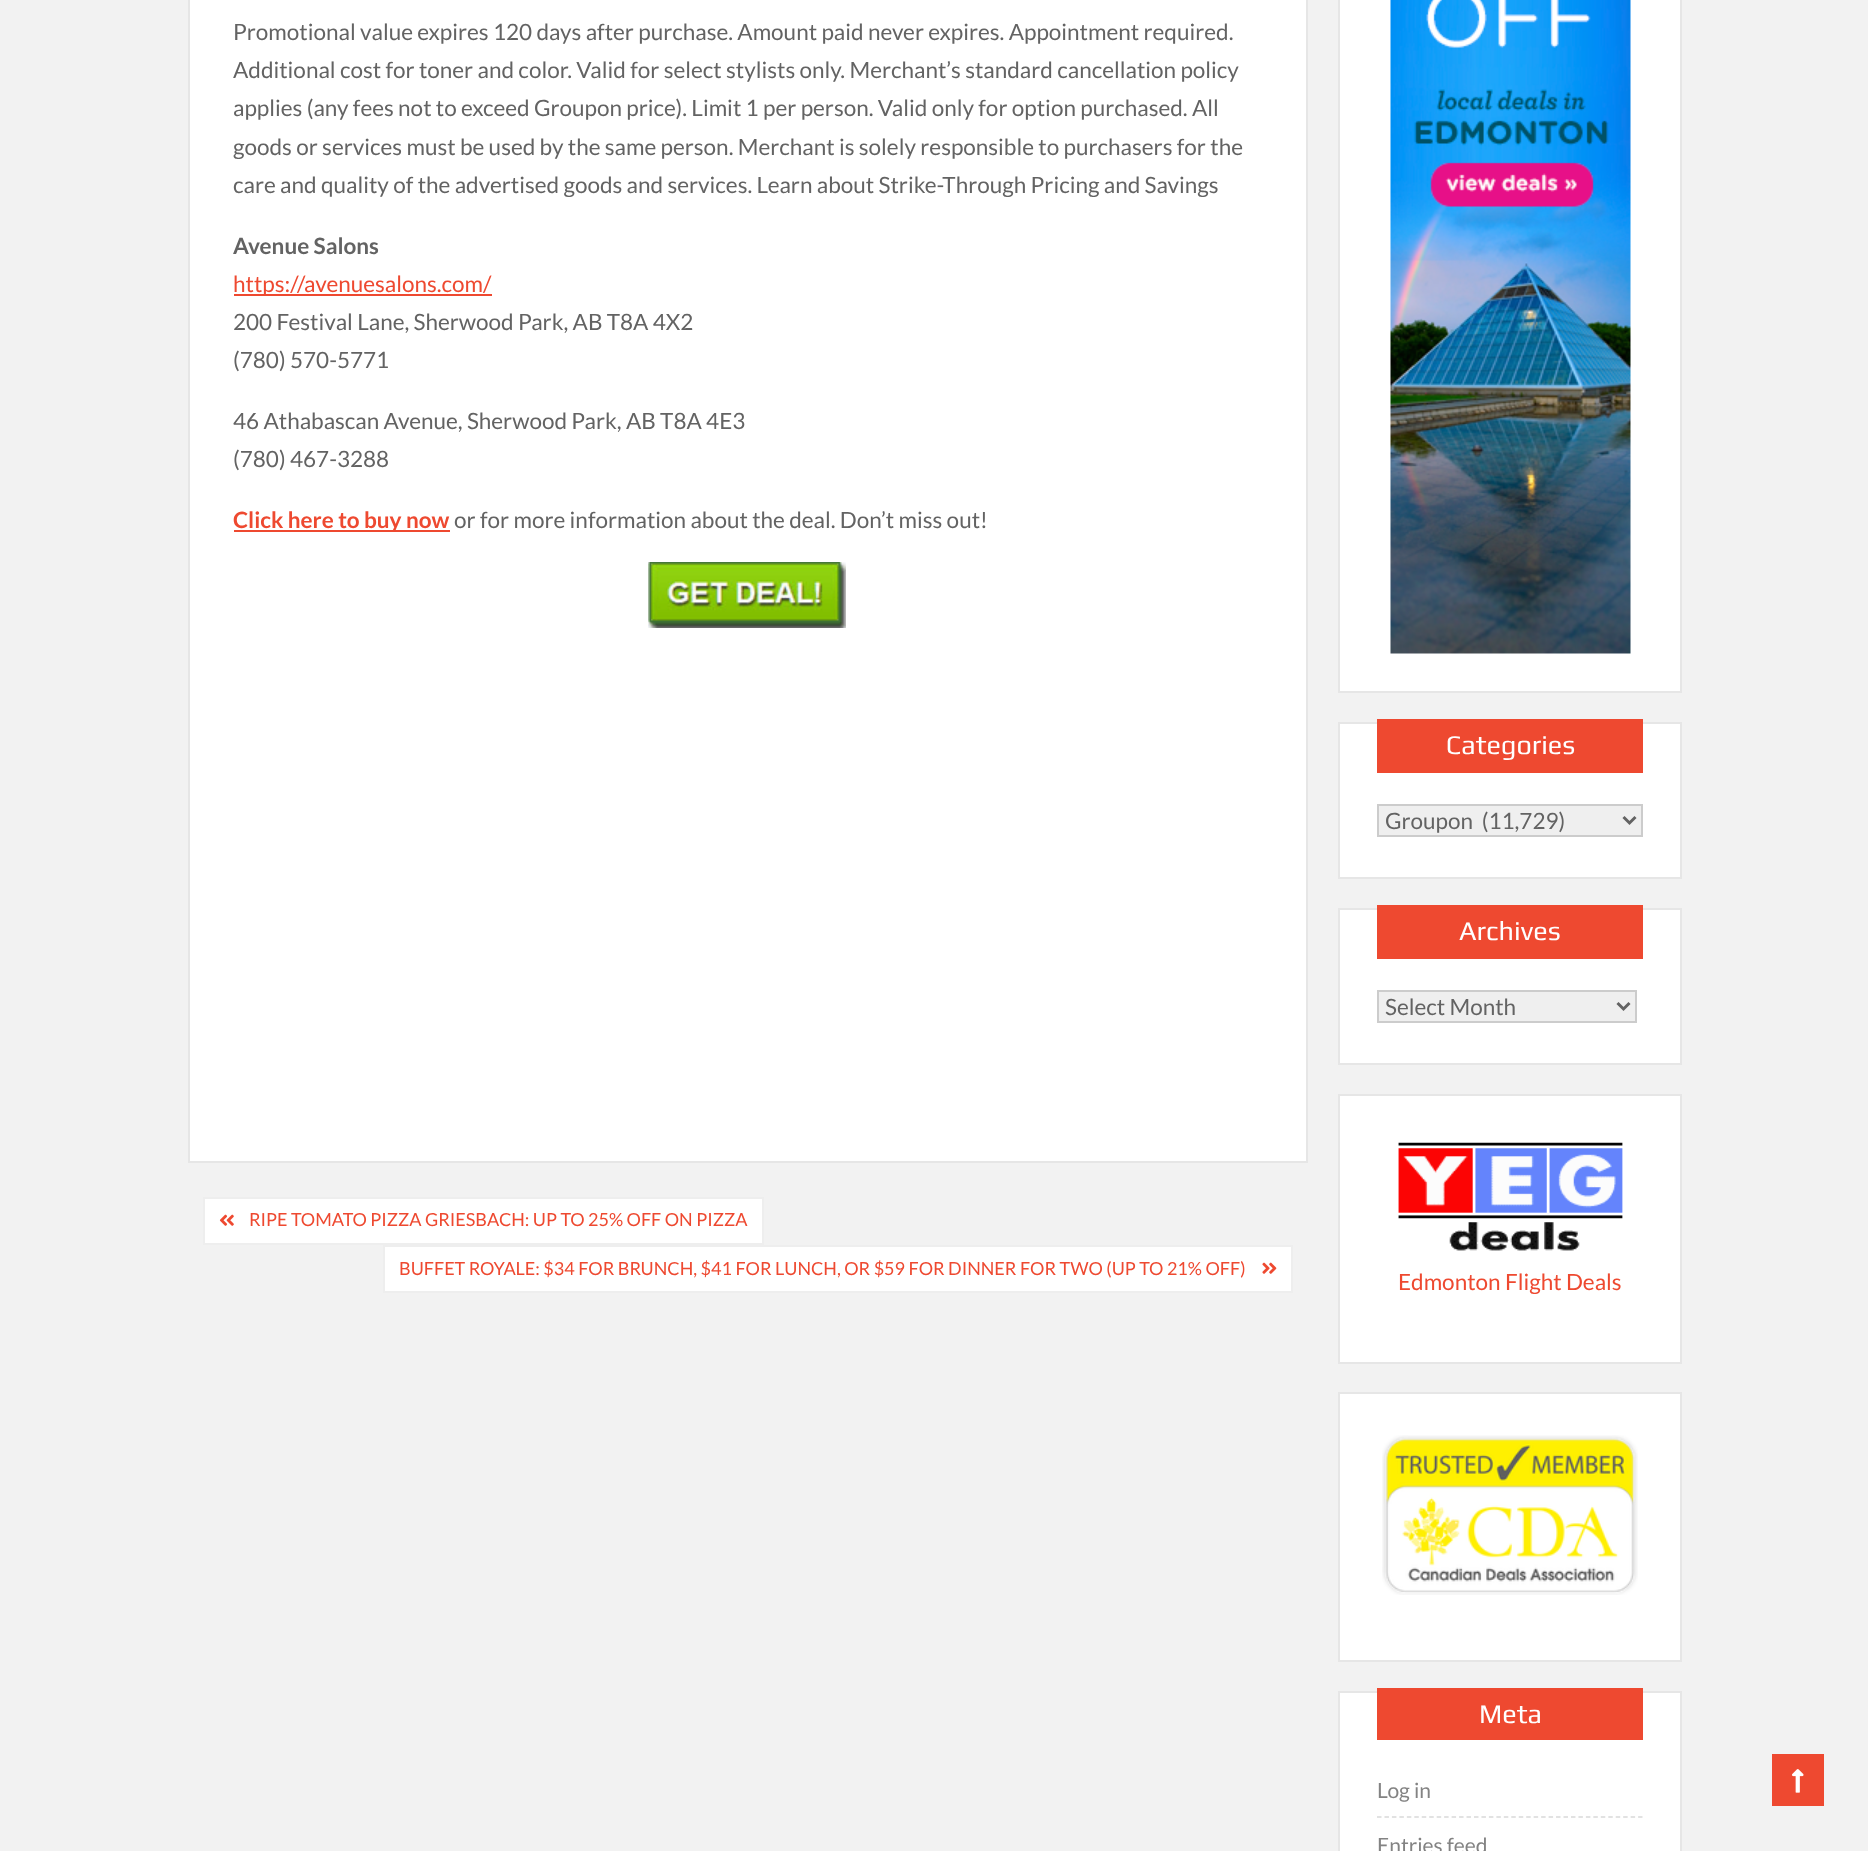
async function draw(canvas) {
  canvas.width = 1868;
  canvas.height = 1851;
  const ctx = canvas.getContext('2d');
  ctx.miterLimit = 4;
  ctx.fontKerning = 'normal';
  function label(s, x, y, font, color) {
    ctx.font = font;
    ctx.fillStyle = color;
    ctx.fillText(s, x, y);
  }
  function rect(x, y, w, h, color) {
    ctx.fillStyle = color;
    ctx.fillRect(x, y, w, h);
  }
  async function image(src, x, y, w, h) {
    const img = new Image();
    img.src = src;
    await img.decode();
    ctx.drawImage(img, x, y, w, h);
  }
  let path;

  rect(0, 0, 1868, 1851, '#f2f2f2');
  ctx.fillStyle = '#fff';
  ctx.beginPath();
  ctx.rect(189, -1, 1118, 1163);
  ctx.fill();
  ctx.strokeStyle = '#e6e6e6';
  ctx.lineWidth = 2;
  ctx.stroke();
  label('Promotional value expires 120 days after purchase. Amount paid never expires. Appointment required.', 233, 40, '22.5px Lato', '#636363');
  label('Additional cost for toner and color. Valid for select stylists only. Merchant’s standard cancellation policy', 233, 78, '22.5px Lato', '#636363');
  label('applies (any fees not to exceed Groupon price). Limit 1 per person. Valid only for option purchased. All', 233, 116, '22.5px Lato', '#636363');
  label('goods or services must be used by the same person. Merchant is solely responsible to purchasers for the', 233, 155, '22.5px Lato', '#636363');
  label('care and quality of the advertised goods and services. Learn about Strike-Through Pricing and Savings', 233, 193, '22.5px Lato', '#636363');
  label('Avenue Salons', 233, 254, 'bold 22.5px Lato', '#636363');
  rect(234, 294, 258, 2, '#ee4930');
  label('https://avenuesalons.com/', 233, 292, '22.5px Lato', '#ee4930');
  label('200 Festival Lane, Sherwood Park, AB T8A 4X2', 233, 330, '22.5px Lato', '#636363');
  label('(780) 570-5771', 233, 368, '22.5px Lato', '#636363');
  label('46 Athabascan Avenue, Sherwood Park, AB T8A 4E3', 233, 429, '22.5px Lato', '#636363');
  label('(780) 467-3288', 233, 467, '22.5px Lato', '#636363');
  rect(234, 530, 216, 2, '#ee4930');
  label('Click here to buy now', 233, 528, 'bold 22.5px Lato', '#ee4930');
  label('or for more information about the deal. Don’t miss out!', 454, 528, '22.5px Lato', '#636363');
  await image('assets/img1.png', 648, 562, 198, 66);
  ctx.fillStyle = '#fff';
  ctx.beginPath();
  ctx.rect(204, 1198, 559, 46);
  ctx.fill();
  ctx.strokeStyle = '#eee';
  ctx.stroke();
  await image('assets/img2.png', 219, 1214, 15, 12);
  label('RIPE TOMATO PIZZA GRIESBACH: UP TO 25% OFF ON PIZZA', 249, 1226, '18px Lato', '#ee4930');
  ctx.fillStyle = '#fff';
  ctx.beginPath();
  ctx.rect(384, 1246, 908, 46);
  ctx.fill();
  ctx.stroke();
  label('BUFFET ROYALE: $34 FOR BRUNCH, $41 FOR LUNCH, OR $59 FOR DINNER FOR TWO (UP TO 21% OFF)', 399, 1275, '18px Lato', '#ee4930');
  await image('assets/img3.png', 1262, 1262, 15, 12);
  ctx.fillStyle = '#fff';
  ctx.beginPath();
  ctx.rect(1339, -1, 342, 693);
  ctx.fill();
  ctx.strokeStyle = '#e6e6e6';
  ctx.stroke();
  await image('assets/img4.png', 1390, 0, 241, 654);
  ctx.beginPath();
  ctx.rect(1339, 723, 342, 155);
  ctx.fill();
  ctx.stroke();
  rect(1377, 719, 266, 54, '#ee4930');
  label('Categories', 1446, 754, '27px Play', '#fff');
  ctx.fillStyle = '#efefef';
  ctx.beginPath();
  ctx.rect(1378, 805, 264, 31);
  ctx.fill();
  ctx.strokeStyle = '#ccc';
  ctx.stroke();
  path = new Path2D('M1623.5 817L1629.5 823L1635.5 817');
  ctx.strokeStyle = '#636363';
  ctx.lineWidth = 3;
  ctx.stroke(path);
  label('Groupon  (11,729)', 1385, 829, '22.5px Lato', '#636363');
  ctx.fillStyle = '#fff';
  ctx.beginPath();
  ctx.rect(1339, 909, 342, 155);
  ctx.fill();
  ctx.strokeStyle = '#e6e6e6';
  ctx.lineWidth = 2;
  ctx.stroke();
  rect(1377, 905, 266, 54, '#ee4930');
  label('Archives', 1459, 940, '27px Play', '#fff');
  ctx.fillStyle = '#efefef';
  ctx.beginPath();
  ctx.rect(1378, 991, 258, 31);
  ctx.fill();
  ctx.strokeStyle = '#ccc';
  ctx.stroke();
  path = new Path2D('M1617.5 1003L1623.5 1009L1629.5 1003');
  ctx.strokeStyle = '#636363';
  ctx.lineWidth = 3;
  ctx.stroke(path);
  label('Select Month', 1385, 1015, '22.5px Lato', '#636363');
  ctx.fillStyle = '#fff';
  ctx.beginPath();
  ctx.rect(1339, 1095, 342, 268);
  ctx.fill();
  ctx.strokeStyle = '#e6e6e6';
  ctx.lineWidth = 2;
  ctx.stroke();
  await image('assets/img5.png', 1398, 1142, 225, 109);
  label('Edmonton Flight Deals', 1398, 1290, '22.5px Lato', '#ee4930');
  ctx.fillStyle = '#fff';
  ctx.beginPath();
  ctx.rect(1339, 1393, 342, 268);
  ctx.fill();
  ctx.stroke();
  await image('assets/img6.png', 1382, 1435, 256, 160);
  ctx.beginPath();
  ctx.rect(1339, 1692, 342, 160);
  ctx.fill();
  ctx.stroke();
  rect(1377, 1688, 266, 52, '#ee4930');
  label('Meta', 1479, 1723, '27px Play', '#fff');
  path = new Path2D('M1377 1817H1642.5');
  ctx.strokeStyle = '#d9d9d9';
  ctx.lineWidth = 1.5;
  ctx.setLineDash([4.5, 2.96]);
  ctx.stroke(path);
  label('Log in', 1377, 1798, '21px Lato', '#838383');
  label('Entries feed', 1377, 1853, '21px Lato', '#838383');
  rect(1772, 1754, 52, 52, '#ee4930');
  await image('assets/img7.png', 1792, 1769, 12, 24);
}

draw(document.querySelector('canvas'));
